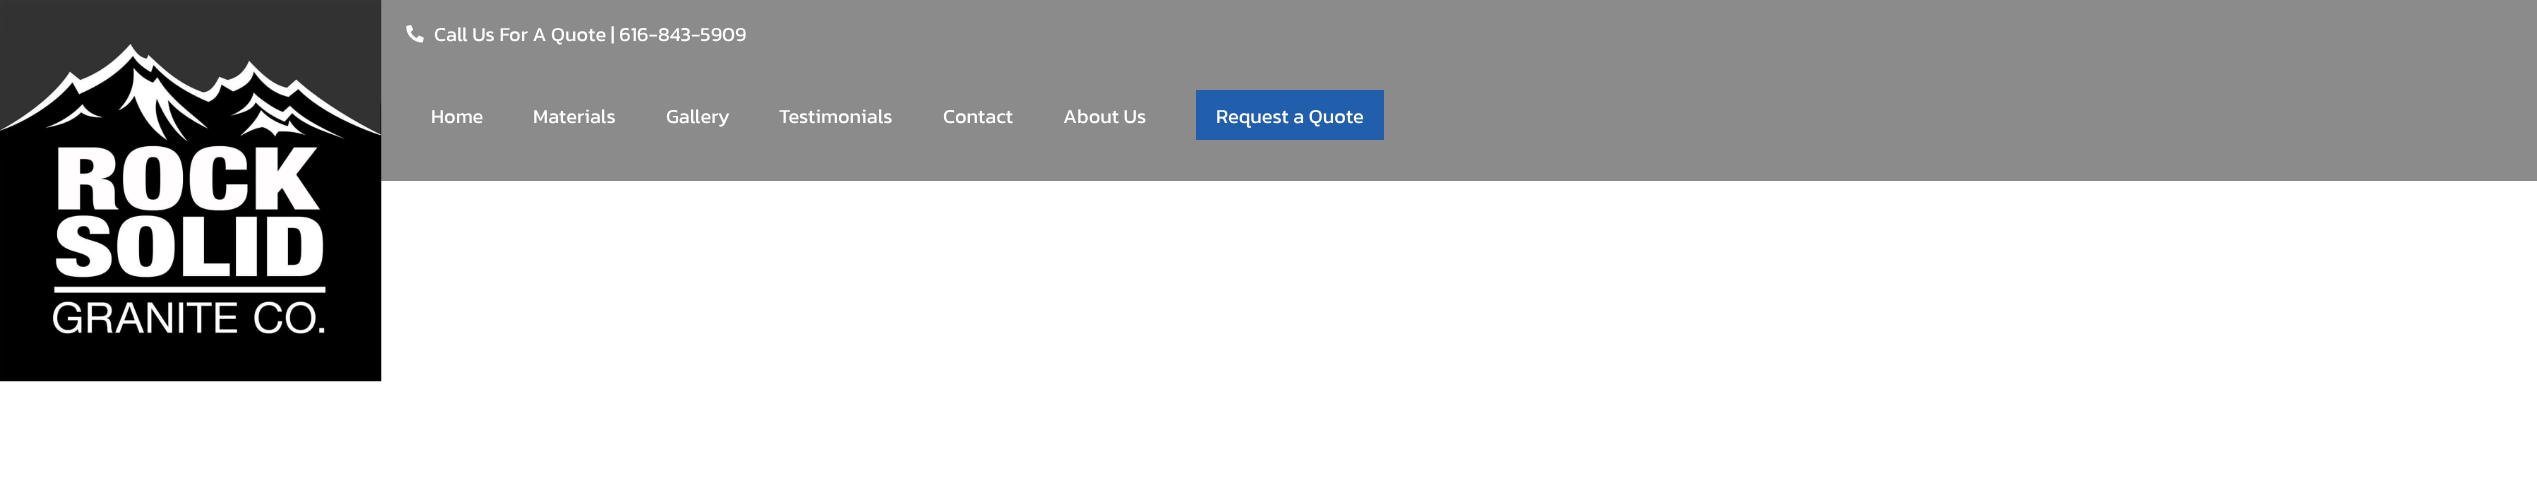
async function draw(canvas) {
  canvas.width = 2537;
  canvas.height = 499;
  const ctx = canvas.getContext('2d');
  ctx.miterLimit = 4;
  ctx.fontKerning = 'normal';
  function label(s, x, y, font, color) {
    ctx.font = font;
    ctx.fillStyle = color;
    ctx.fillText(s, x, y);
  }
  function rect(x, y, w, h, color) {
    ctx.fillStyle = color;
    ctx.fillRect(x, y, w, h);
  }
  async function image(src, x, y, w, h) {
    const img = new Image();
    img.src = src;
    await img.decode();
    ctx.drawImage(img, x, y, w, h);
  }

  rect(0, 0, 2537, 499, '#fff');
  await image('assets/img1.png', 0, 0, 382, 382);
  rect(381, 0, 2156, 181, '#33333391');
  await image('assets/img2.png', 406, 25, 18, 18);
  label('Call Us For A Quote | 616-843-5909', 434, 41, '20px Kanit', '#fffdfe');
  label('Home', 431, 123, '20px Kanit', '#fffdfe');
  label('Materials', 533, 123, '20px Kanit', '#fffdfe');
  label('Gallery', 666, 123, '20px Kanit', '#fffdfe');
  label('Testimonials', 779, 123, '20px Kanit', '#fffdfe');
  label('Contact', 943, 123, '20px Kanit', '#fffdfe');
  label('About Us', 1063, 123, '20px Kanit', '#fffdfe');
  rect(1196, 90, 188, 50, '#215fac');
  label('Request a Quote', 1216, 123, '20px Kanit', '#fffdfe');
}

draw(document.querySelector('canvas'));
